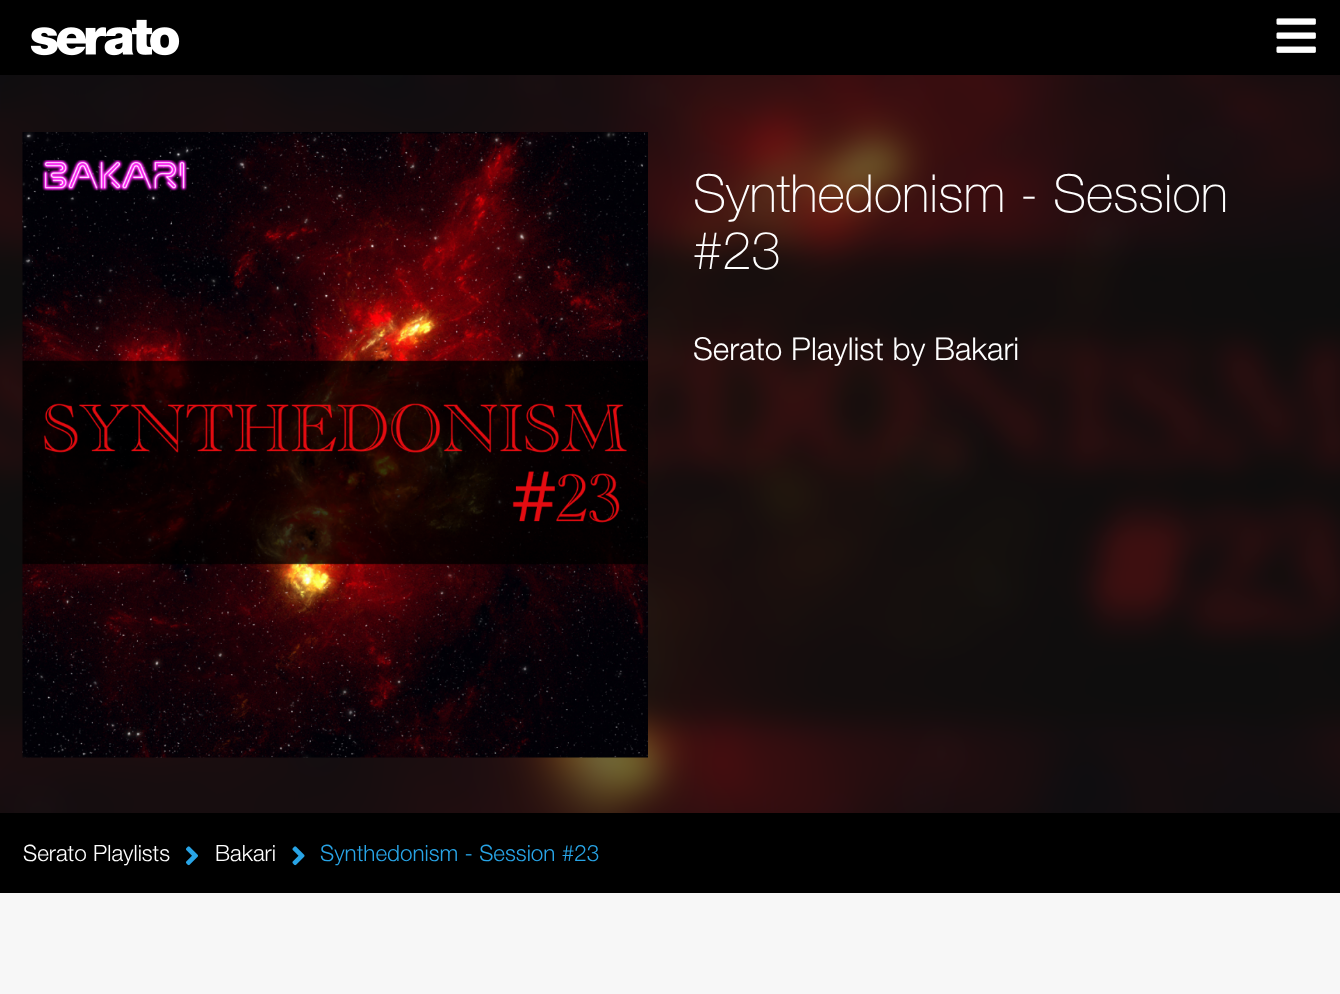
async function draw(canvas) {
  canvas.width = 1340;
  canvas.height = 994;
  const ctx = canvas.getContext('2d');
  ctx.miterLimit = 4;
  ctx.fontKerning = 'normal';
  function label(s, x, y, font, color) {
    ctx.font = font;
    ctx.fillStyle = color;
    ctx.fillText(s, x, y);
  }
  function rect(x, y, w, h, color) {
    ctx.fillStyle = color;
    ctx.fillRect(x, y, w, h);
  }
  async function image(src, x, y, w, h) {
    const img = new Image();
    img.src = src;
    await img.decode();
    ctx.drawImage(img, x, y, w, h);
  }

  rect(0, 0, 1340, 994, '#000');
  await image('assets/img1.png', 30, 19, 150, 37);
  await image('assets/img2.png', 1276, 18, 40, 35);
  rect(0, 893, 1340, 101, '#f7f7f7');
  rect(0, 75, 1340, 738, '#161616');
  await image('assets/img3.png', 0, 75, 1340, 738);
  await image('assets/img4.png', 22, 132, 626, 626);
  label('Synthedonism - Session', 693, 212, '100 52.5px "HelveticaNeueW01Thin"', '#fff');
  label('#23', 693, 269, '100 52.5px "HelveticaNeueW01Thin"', '#fff');
  label('Serato Playlist by Bakari', 693, 360, '300 31.5px "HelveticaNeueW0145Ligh"', '#fff');
  label('Serato Playlists', 23, 861, '300 22.5px "HelveticaNeueW0145Ligh"', '#fff');
  await image('assets/img5.png', 186, 846, 12, 20);
  label('Bakari', 215, 861, '300 22.5px "HelveticaNeueW0145Ligh"', '#fff');
  await image('assets/img6.png', 292, 846, 13, 20);
  label('Synthedonism - Session #23', 320, 861, '300 22.5px "HelveticaNeueW0145Ligh"', '#28a4e6');
}

draw(document.querySelector('canvas'));
